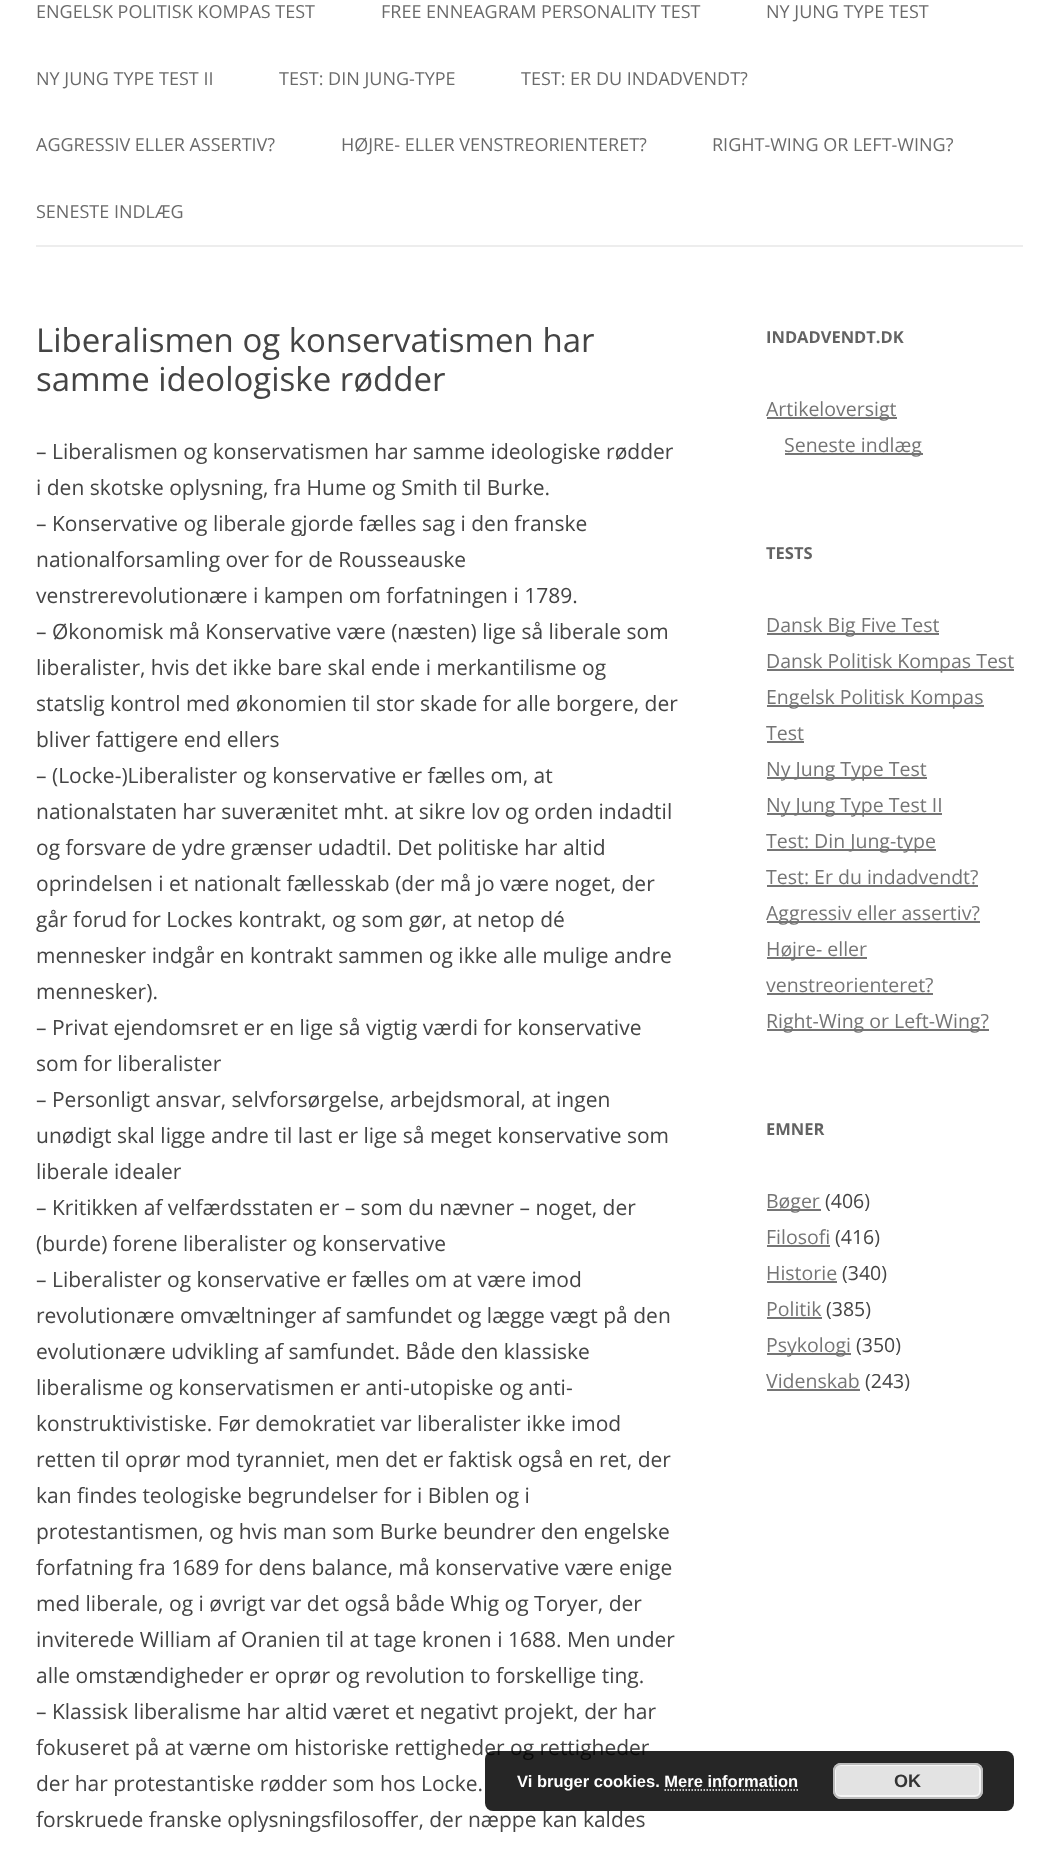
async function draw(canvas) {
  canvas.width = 1059;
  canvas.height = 1855;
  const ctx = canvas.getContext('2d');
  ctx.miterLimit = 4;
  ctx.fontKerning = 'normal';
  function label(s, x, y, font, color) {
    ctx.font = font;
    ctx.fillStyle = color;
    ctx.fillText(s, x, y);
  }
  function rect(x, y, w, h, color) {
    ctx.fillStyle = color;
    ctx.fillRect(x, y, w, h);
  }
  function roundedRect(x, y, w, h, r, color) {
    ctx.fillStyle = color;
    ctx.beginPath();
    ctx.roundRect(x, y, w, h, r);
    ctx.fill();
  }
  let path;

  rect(0, 0, 1059, 1855, '#fff');
  rect(36, 245, 987, 2, '#ededed');
  label('ENGELSK POLITISK KOMPAS TEST', 36, 18, '18px Open Sans', '#6a6a6a');
  label('FREE ENNEAGRAM PERSONALITY TEST', 381, 18, '18px Open Sans', '#6a6a6a');
  label('NY JUNG TYPE TEST', 766, 18, '18px Open Sans', '#6a6a6a');
  label('NY JUNG TYPE TEST II', 36, 85, '18px Open Sans', '#6a6a6a');
  label('TEST: DIN JUNG-TYPE', 279, 85, '18px Open Sans', '#6a6a6a');
  label('TEST: ER DU INDADVENDT?', 521, 85, '18px Open Sans', '#6a6a6a');
  label('AGGRESSIV ELLER ASSERTIV?', 36, 151, '18px Open Sans', '#6a6a6a');
  label('HØJRE- ELLER VENSTREORIENTERET?', 341, 151, '18px Open Sans', '#6a6a6a');
  label('RIGHT-WING OR LEFT-WING?', 712, 151, '18px Open Sans', '#6a6a6a');
  label('SENESTE INDLÆG', 36, 218, '18px Open Sans', '#6a6a6a');
  label('Liberalismen og konservatismen har', 36, 352, '33px Open Sans', '#444');
  label('samme ideologiske rødder', 36, 391, '33px Open Sans', '#444');
  label('– Liberalismen og konservatismen har samme ideologiske rødder', 36, 459, '21px Open Sans', '#444');
  label('i den skotske oplysning, fra Hume og Smith til Burke.', 36, 495, '21px Open Sans', '#444');
  label('– Konservative og liberale gjorde fælles sag i den franske', 36, 531, '21px Open Sans', '#444');
  label('nationalforsamling over for de Rousseauske', 36, 567, '21px Open Sans', '#444');
  label('venstrerevolutionære i kampen om forfatningen i 1789.', 36, 603, '21px Open Sans', '#444');
  label('– Økonomisk må Konservative være (næsten) lige så liberale som', 36, 639, '21px Open Sans', '#444');
  label('liberalister, hvis det ikke bare skal ende i merkantilisme og', 36, 675, '21px Open Sans', '#444');
  label('statslig kontrol med økonomien til stor skade for alle borgere, der', 36, 711, '21px Open Sans', '#444');
  label('bliver fattigere end ellers', 36, 747, '21px Open Sans', '#444');
  label('– (Locke-)Liberalister og konservative er fælles om, at', 36, 783, '21px Open Sans', '#444');
  label('nationalstaten har suverænitet mht. at sikre lov og orden indadtil', 36, 819, '21px Open Sans', '#444');
  label('og forsvare de ydre grænser udadtil. Det politiske har altid', 36, 855, '21px Open Sans', '#444');
  label('oprindelsen i et nationalt fællesskab (der må jo være noget, der', 36, 891, '21px Open Sans', '#444');
  label('går forud for Lockes kontrakt, og som gør, at netop dé', 36, 927, '21px Open Sans', '#444');
  label('mennesker indgår en kontrakt sammen og ikke alle mulige andre', 36, 963, '21px Open Sans', '#444');
  label('mennesker).', 36, 999, '21px Open Sans', '#444');
  label('– Privat ejendomsret er en lige så vigtig værdi for konservative', 36, 1035, '21px Open Sans', '#444');
  label('som for liberalister', 36, 1071, '21px Open Sans', '#444');
  label('– Personligt ansvar, selvforsørgelse, arbejdsmoral, at ingen', 36, 1107, '21px Open Sans', '#444');
  label('unødigt skal ligge andre til last er lige så meget konservative som', 36, 1143, '21px Open Sans', '#444');
  label('liberale idealer', 36, 1179, '21px Open Sans', '#444');
  label('– Kritikken af velfærdsstaten er – som du nævner – noget, der', 36, 1215, '21px Open Sans', '#444');
  label('(burde) forene liberalister og konservative', 36, 1251, '21px Open Sans', '#444');
  label('– Liberalister og konservative er fælles om at være imod', 36, 1287, '21px Open Sans', '#444');
  label('revolutionære omvæltninger af samfundet og lægge vægt på den', 36, 1323, '21px Open Sans', '#444');
  label('evolutionære udvikling af samfundet. Både den klassiske', 36, 1359, '21px Open Sans', '#444');
  label('liberalisme og konservatismen er anti-utopiske og anti-', 36, 1395, '21px Open Sans', '#444');
  label('konstruktivistiske. Før demokratiet var liberalister ikke imod', 36, 1431, '21px Open Sans', '#444');
  label('retten til oprør mod tyranniet, men det er faktisk også en ret, der', 36, 1467, '21px Open Sans', '#444');
  label('kan findes teologiske begrundelser for i Biblen og i', 36, 1503, '21px Open Sans', '#444');
  label('protestantismen, og hvis man som Burke beundrer den engelske', 36, 1539, '21px Open Sans', '#444');
  label('forfatning fra 1689 for dens balance, må konservative være enige', 36, 1575, '21px Open Sans', '#444');
  label('med liberale, og i øvrigt var det også både Whig og Toryer, der', 36, 1611, '21px Open Sans', '#444');
  label('inviterede William af Oranien til at tage kronen i 1688. Men under', 36, 1647, '21px Open Sans', '#444');
  label('alle omstændigheder er oprør og revolution to forskellige ting.', 36, 1683, '21px Open Sans', '#444');
  label('– Klassisk liberalisme har altid været et negativt projekt, der har', 36, 1719, '21px Open Sans', '#444');
  label('fokuseret på at værne om historiske rettigheder og rettigheder', 36, 1755, '21px Open Sans', '#444');
  label('der har protestantiske rødder som hos Locke.', 36, 1791, '21px Open Sans', '#444');
  label('forskruede franske oplysningsfilosoffer, der næppe kan kaldes', 36, 1827, '21px Open Sans', '#444');
  label('INDADVENDT.DK', 766, 343, 'bold 16.5px Open Sans', '#636363');
  rect(767, 417, 130, 2, '#757575');
  label('Artikeloversigt', 766, 416, '19.5px Open Sans', '#757575');
  rect(785, 453, 138, 2, '#757575');
  label('Seneste indlæg', 784, 452, '19.5px Open Sans', '#757575');
  label('TESTS', 766, 559, 'bold 16.5px Open Sans', '#636363');
  rect(767, 633, 172, 2, '#757575');
  label('Dansk Big Five Test', 766, 632, '19.5px Open Sans', '#757575');
  rect(767, 669, 247, 2, '#757575');
  label('Dansk Politisk Kompas Test', 766, 668, '19.5px Open Sans', '#757575');
  rect(767, 705, 217, 2, '#757575');
  label('Engelsk Politisk Kompas', 766, 704, '19.5px Open Sans', '#757575');
  label('Test', 766, 740, '19.5px Open Sans', '#757575');
  rect(767, 741, 37, 2, '#757575');
  rect(767, 777, 160, 2, '#757575');
  label('Ny Jung Type Test', 766, 776, '19.5px Open Sans', '#757575');
  rect(767, 813, 175, 2, '#757575');
  label('Ny Jung Type Test II', 766, 812, '19.5px Open Sans', '#757575');
  rect(767, 849, 169, 2, '#757575');
  label('Test: Din Jung-type', 766, 848, '19.5px Open Sans', '#757575');
  label('Test: Er du indadvendt?', 766, 884, '19.5px Open Sans', '#757575');
  rect(767, 885, 211, 2, '#757575');
  rect(767, 921, 213, 2, '#757575');
  label('Aggressiv eller assertiv?', 766, 920, '19.5px Open Sans', '#757575');
  rect(767, 957, 100, 2, '#757575');
  label('Højre- eller', 766, 956, '19.5px Open Sans', '#757575');
  label('venstreorienteret?', 766, 992, '19.5px Open Sans', '#757575');
  rect(767, 993, 166, 2, '#757575');
  rect(767, 1029, 222, 2, '#757575');
  label('Right-Wing or Left-Wing?', 766, 1028, '19.5px Open Sans', '#757575');
  label('EMNER', 766, 1135, 'bold 16.5px Open Sans', '#636363');
  rect(767, 1209, 54, 2, '#757575');
  label('Bøger', 766, 1208, '19.5px Open Sans', '#757575');
  label('(406)', 825, 1208, '19.5px Open Sans', '#444');
  label('Filosofi', 766, 1244, '19.5px Open Sans', '#757575');
  rect(767, 1245, 63, 2, '#757575');
  label('(416)', 835, 1244, '19.5px Open Sans', '#444');
  label('Historie', 766, 1280, '19.5px Open Sans', '#757575');
  rect(767, 1281, 70, 2, '#757575');
  label('(340)', 842, 1280, '19.5px Open Sans', '#444');
  label('Politik', 766, 1316, '19.5px Open Sans', '#757575');
  rect(767, 1317, 55, 2, '#757575');
  label('(385)', 826, 1316, '19.5px Open Sans', '#444');
  rect(767, 1353, 84, 2, '#757575');
  label('Psykologi', 766, 1352, '19.5px Open Sans', '#757575');
  label('(350)', 856, 1352, '19.5px Open Sans', '#444');
  label('Videnskab', 766, 1388, '19.5px Open Sans', '#757575');
  rect(767, 1389, 93, 2, '#757575');
  label('(243)', 865, 1388, '19.5px Open Sans', '#444');
  roundedRect(485, 1751, 529, 60, 8, '#000000d9');
  label('Vi bruger cookies. Mere information', 517, 1787, 'bold 16.5px Liberation Sans', '#fff');
  roundedRect(833, 1763, 150, 36, 8, '#e3e3e3');
  ctx.beginPath();
  ctx.roundRect(835, 1765, 145, 31, 5);
  ctx.strokeStyle = '#f6f6f6';
  ctx.lineWidth = 2;
  ctx.stroke();
  ctx.beginPath();
  ctx.roundRect(834, 1764, 148, 34, 7);
  ctx.strokeStyle = '#bbb';
  ctx.stroke();
  label('OK', 894, 1787, 'bold 18px Liberation Sans', '#333');
  path = new Path2D('M664.5 1790H798');
  ctx.strokeStyle = '#fff';
  ctx.lineWidth = 1.5;
  ctx.setLineDash([1.5, 1.5]);
  ctx.stroke(path);
}

draw(document.querySelector('canvas'));
